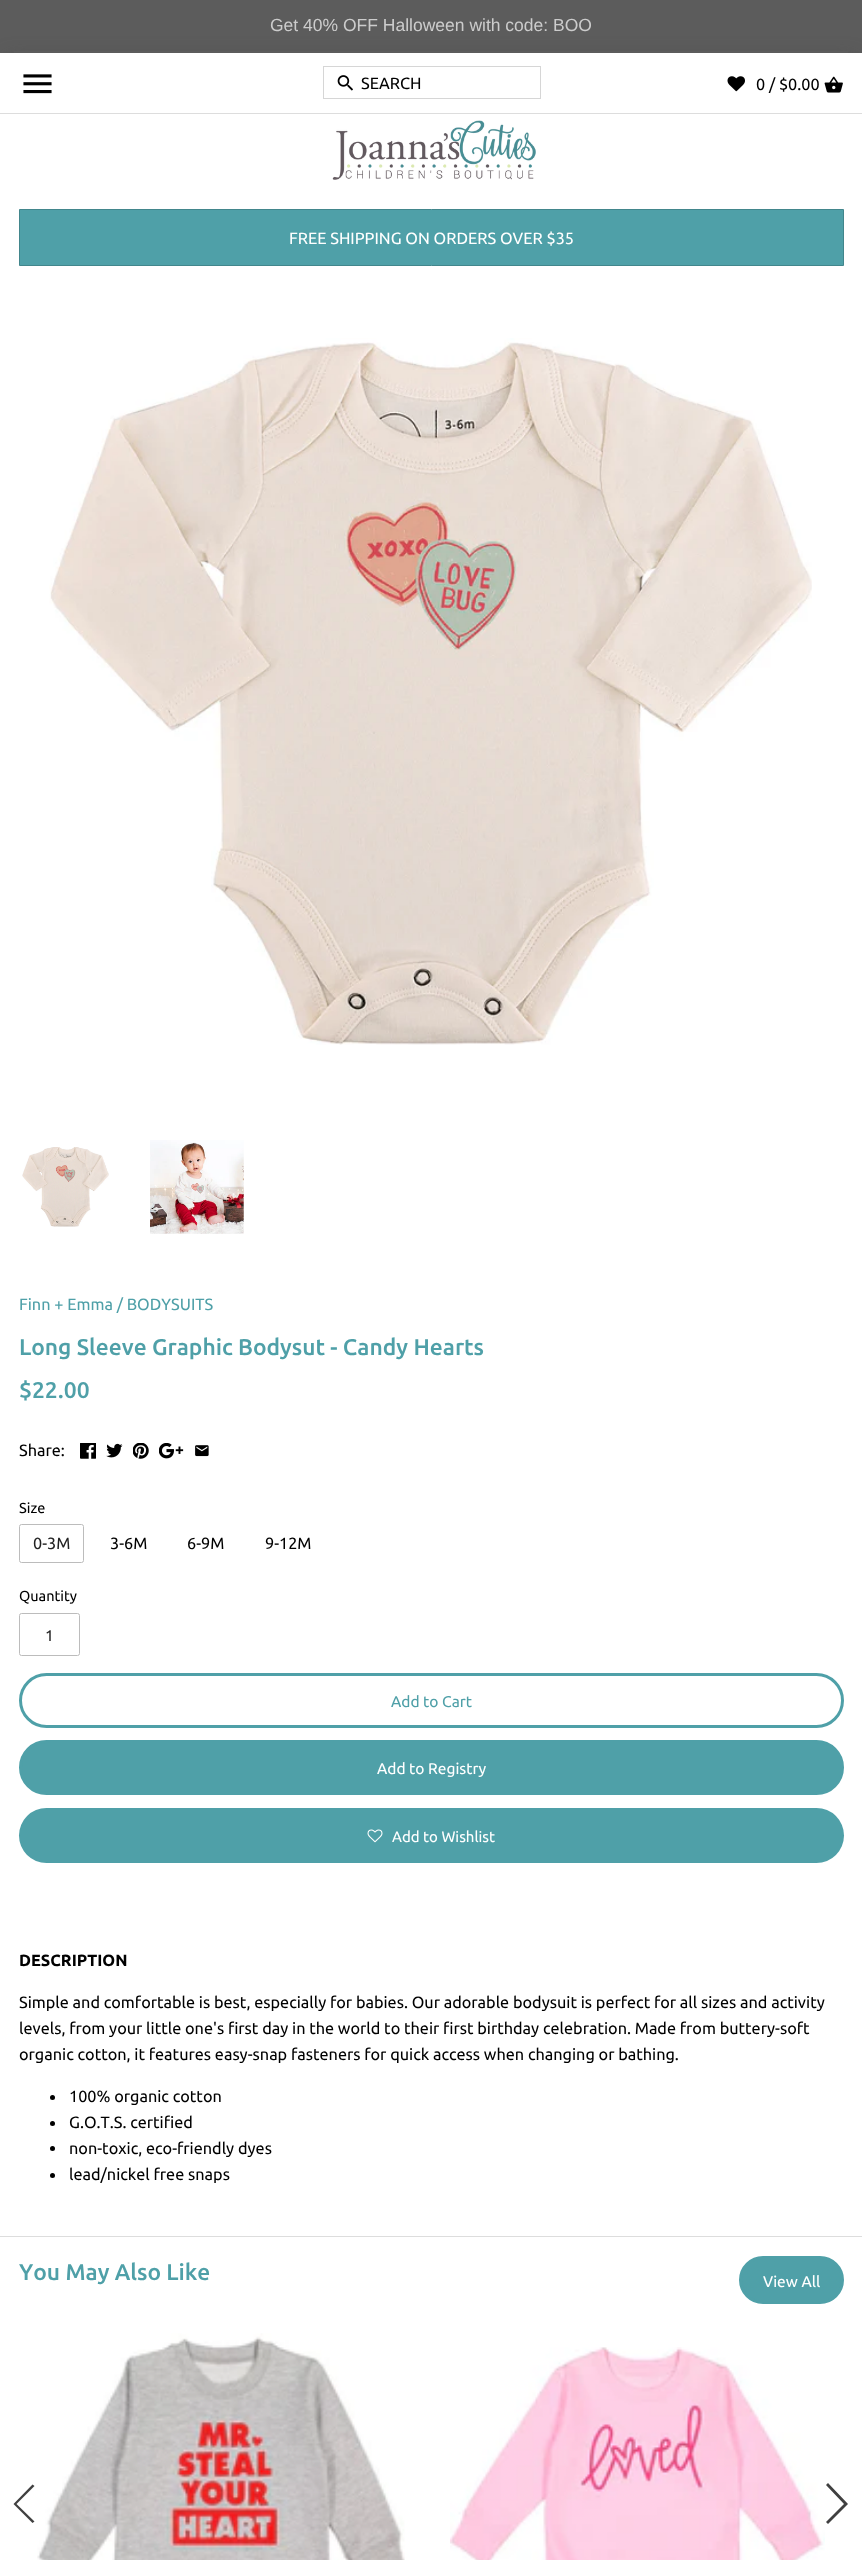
async function draw(canvas) {
  canvas.width = 862;
  canvas.height = 2560;
  const ctx = canvas.getContext('2d');
  ctx.miterLimit = 4;
  ctx.fontKerning = 'none';
  function label(s, x, y, font, color) {
    ctx.font = font;
    ctx.fillStyle = color;
    ctx.fillText(s, x, y);
  }
  function rect(x, y, w, h, color) {
    ctx.fillStyle = color;
    ctx.fillRect(x, y, w, h);
  }
  function roundedRect(x, y, w, h, r, color) {
    ctx.fillStyle = color;
    ctx.beginPath();
    ctx.roundRect(x, y, w, h, r);
    ctx.fill();
  }
  async function image(src, x, y, w, h) {
    const img = new Image();
    img.src = src;
    await img.decode();
    ctx.drawImage(img, x, y, w, h);
  }
  let path;

  rect(0, 0, 862, 2560, '#5c5c5c');
  ctx.fillStyle = '#45454580';
  ctx.filter = 'blur(9.5px)';
  ctx.beginPath();
  ctx.rect(6, 58, 850, 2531);
  ctx.fill();
  ctx.filter = 'none';
  label('Get 40% OFF Halloween with code: BOO', 270, 31, '17.5px Liberation Sans', '#ccc');
  rect(0, 53, 862, 2507, '#fff');
  rect(14, 51, 834, 2, '#5c5c5c');
  rect(0, 113, 862, 1, '#ddd');
  await image('assets/img1.png', 23, 74, 29, 20);
  ctx.strokeStyle = '#d6d6d6';
  ctx.strokeRect(323.5, 66.5, 217, 32);
  await image('assets/img2.png', 337, 75, 16, 16);
  label('SEARCH', 361, 89, '16.25px Ubuntu', '#000');
  await image('assets/img3.png', 727, 76, 18, 16);
  label('0 / $0.00', 756, 90, '16.25px Ubuntu', '#000');
  await image('assets/img4.png', 824, 76, 19, 17);
  await image('assets/img5.png', 332, 120, 204, 60);
  ctx.fillStyle = '#4fa0a8';
  ctx.beginPath();
  ctx.rect(19.5, 209.5, 824, 56);
  ctx.fill();
  ctx.strokeStyle = '#42868c';
  ctx.stroke();
  label('FREE SHIPPING ON ORDERS OVER $35', 289, 244, '16.25px Ubuntu', '#fff');
  await image('assets/img6.png', 49, 338, 763, 707);
  await image('assets/img7.png', 22, 1147, 87, 80);
  await image('assets/img8.png', 150, 1140, 94, 94);
  label('Finn + Emma / BODYSUITS', 19, 1310, '16.25px Ubuntu', '#4fa0a8');
  label('Long Sleeve Graphic Bodysut - Candy Hearts', 19, 1355, '500 22.75px Ubuntu', '#4fa0a8');
  label('$22.00', 19, 1398, '500 22.75px Ubuntu', '#4fa0a8');
  label('Share:', 19, 1456, '16.25px Ubuntu', '#000');
  await image('assets/img9.png', 80, 1443, 16, 16);
  await image('assets/img10.png', 106, 1443, 17, 15);
  await image('assets/img11.png', 133, 1443, 16, 16);
  await image('assets/img12.png', 159, 1443, 25, 16);
  await image('assets/img13.png', 195, 1445, 14, 12);
  label('Size', 19, 1513, '14.5px Ubuntu', '#000');
  ctx.beginPath();
  ctx.roundRect(19.5, 1524.5, 64, 38, 2);
  ctx.strokeStyle = '#bcbcbc';
  ctx.stroke();
  label('0-3M', 33, 1549, '16.25px Ubuntu', '#222');
  label('3-6M', 110, 1549, '16.25px Ubuntu', '#000');
  label('6-9M', 187, 1549, '16.25px Ubuntu', '#000');
  label('9-12M', 265, 1549, '16.25px Ubuntu', '#000');
  label('Quantity', 19, 1601, '14.5px Ubuntu', '#000');
  ctx.beginPath();
  ctx.roundRect(19.5, 1613.5, 60, 42, 2);
  ctx.stroke();
  label('1', 45, 1641, '15.5px Ubuntu', '#222');
  ctx.beginPath();
  ctx.roundRect(20.5, 1674.5, 822, 52, 26);
  ctx.strokeStyle = '#4fa0a8';
  ctx.lineWidth = 3;
  ctx.stroke();
  label('Add to Cart', 391, 1707, '15.5px Ubuntu', '#4fa0a8');
  ctx.beginPath();
  ctx.roundRect(20.5, 1741.5, 822, 52, 26);
  ctx.fill();
  ctx.stroke();
  label('Add to Registry', 377, 1774, '15.5px Ubuntu', '#fff');
  roundedRect(19, 1808, 825, 55, 27.5, '#4fa0a8');
  await image('assets/img14.png', 367, 1829, 16, 14);
  label('Add to Wishlist', 392, 1842, '15px Ubuntu', '#fff');
  label('DESCRIPTION', 19, 1966, 'bold 16.25px Ubuntu', '#000');
  label('Simple and comfortable is best, especially for babies. Our adorable bodysuit is perfect for all sizes and activity', 19, 2008, '16.25px Ubuntu', '#000');
  label('levels, from your little one\'s first day in the world to their first birthday celebration. Made from buttery-soft', 19, 2034, '16.25px Ubuntu', '#000');
  label('organic cotton, it features easy-snap fasteners for quick access when changing or bathing.', 19, 2060, '16.25px Ubuntu', '#000');
  ctx.beginPath();
  ctx.arc(52.5, 2097.5, 2.5, 0, 2 * Math.PI);
  ctx.fill();
  label('100% organic cotton', 69, 2102, '16.25px Ubuntu', '#000');
  ctx.beginPath();
  ctx.arc(52.5, 2123.5, 2.5, 0, 2 * Math.PI);
  ctx.fill();
  label('G.O.T.S. certified', 69, 2128, '16.25px Ubuntu', '#000');
  ctx.beginPath();
  ctx.arc(52.5, 2148.5, 2.5, 0, 2 * Math.PI);
  ctx.fill();
  label('non-toxic, eco-friendly dyes', 69, 2154, '16.25px Ubuntu', '#000');
  ctx.beginPath();
  ctx.arc(52.5, 2175.5, 2.5, 0, 2 * Math.PI);
  ctx.fill();
  label('lead/nickel free snaps', 69, 2180, '16.25px Ubuntu', '#000');
  rect(0, 2236, 862, 1, '#ddd');
  label('You May Also Like', 19, 2280, '500 22.75px Ubuntu', '#4fa0a8');
  ctx.beginPath();
  ctx.roundRect(740.5, 2257.5, 102, 45, 22.5);
  ctx.fill();
  ctx.stroke();
  label('View All', 763, 2287, '15.5px Ubuntu', '#fff');
  ctx.fillStyle = '#404040';
  path = new Path2D('M34.5 2486L32.5 2484.5L13.5 2504L32.5 2523L34.5 2521.5L16.5 2504Z');
  ctx.fill(path);
  await image('assets/img15.png', 37, 2333, 368, 227);
  await image('assets/img16.png', 450, 2347, 375, 213);
  path = new Path2D('M828 2483L826 2485L844 2504L826 2522L828 2524L848 2504Z');
  ctx.fill(path);
}

draw(document.querySelector('canvas'));
